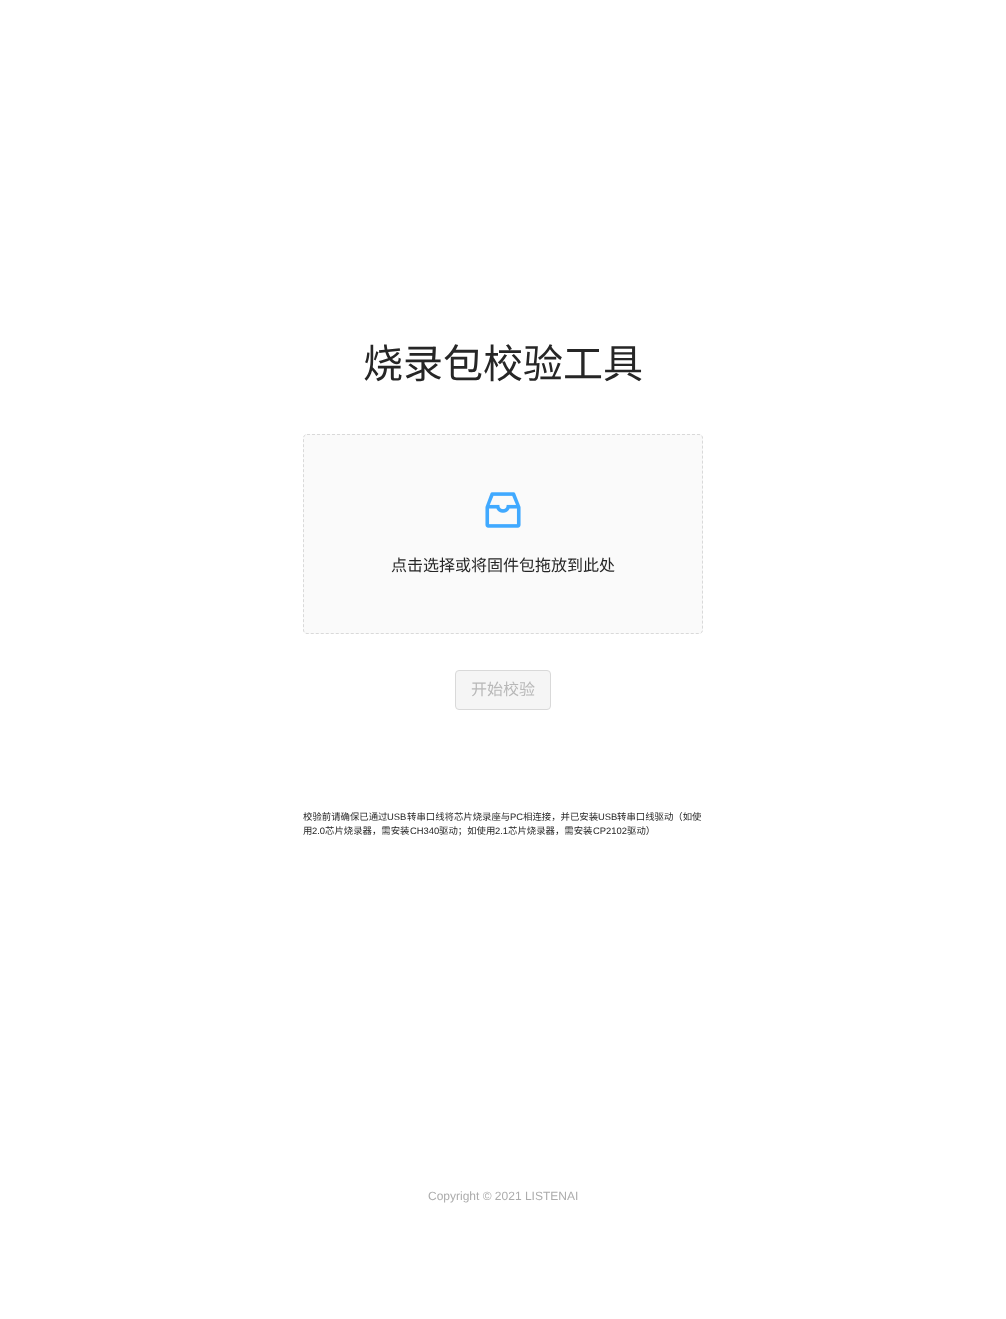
async function draw(canvas) {
  canvas.width = 1006;
  canvas.height = 1319;
  const ctx = canvas.getContext('2d');
  ctx.miterLimit = 4;
  ctx.fontKerning = 'normal';
  function label(s, x, y, font, color) {
    ctx.font = font;
    ctx.fillStyle = color;
    ctx.fillText(s, x, y);
  }
  function rect(x, y, w, h, color) {
    ctx.fillStyle = color;
    ctx.fillRect(x, y, w, h);
  }
  function roundedRect(x, y, w, h, r, color) {
    ctx.fillStyle = color;
    ctx.beginPath();
    ctx.roundRect(x, y, w, h, r);
    ctx.fill();
  }
  async function image(src, x, y, w, h) {
    const img = new Image();
    img.src = src;
    await img.decode();
    ctx.drawImage(img, x, y, w, h);
  }
  let path;

  rect(0, 0, 1006, 1319, '#fff');
  label('烧录包校验工具', 363, 378, '40px Noto Sans CJK SC', '#262626');
  roundedRect(303, 434, 400, 200, 4, '#fafafa');
  path = new Path2D('M307 434.5H699C701 434.5 702.5 436 702.5 438V630C702.5 632 701 633.5 699 633.5H307C305 633.5 303.5 632 303.5 630V438C303.5 436 305 434.5 307 434.5Z');
  ctx.strokeStyle = '#d9d9d9';
  ctx.setLineDash([3, 2]);
  ctx.stroke(path);
  await image('assets/img1.png', 485, 492, 36, 36);
  label('点击选择或将固件包拖放到此处', 391, 571, '16px Noto Sans CJK SC', '#262626');
  ctx.fillStyle = '#f5f5f5';
  ctx.beginPath();
  ctx.roundRect(455.5, 670.5, 95, 39, 3.5);
  ctx.fill();
  ctx.setLineDash([]);
  ctx.stroke();
  label('开始校验', 471, 695, '16px Noto Sans CJK SC', '#b8b8b8');
  label('校验前请确保已通过', 303, 820, '9.4px Noto Sans CJK SC', '#262626');
  label('USB', 387, 820, '9.4px Liberation Sans', '#262626');
  label('转串口线将芯片烧录座与', 407, 820, '9.4px Noto Sans CJK SC', '#262626');
  label('PC', 510, 820, '9.4px Liberation Sans', '#262626');
  label('相连接，并已安装', 523, 820, '9.4px Noto Sans CJK SC', '#262626');
  label('USB', 598, 820, '9.4px Liberation Sans', '#262626');
  label('转串口线驱动（如使', 617, 820, '9.4px Noto Sans CJK SC', '#262626');
  label('用', 303, 834, '9.4px Noto Sans CJK SC', '#262626');
  label('2.0', 312, 834, '9.4px Liberation Sans', '#262626');
  label('芯片烧录器，需安装', 325, 834, '9.4px Noto Sans CJK SC', '#262626');
  label('CH340', 410, 834, '9.4px Liberation Sans', '#262626');
  label('驱动；如使用', 439, 834, '9.4px Noto Sans CJK SC', '#262626');
  label('2.1', 495, 834, '9.4px Liberation Sans', '#262626');
  label('芯片烧录器，需安装', 508, 834, '9.4px Noto Sans CJK SC', '#262626');
  label('CP2102', 593, 834, '9.4px Liberation Sans', '#262626');
  label('驱动）', 627, 834, '9.4px Noto Sans CJK SC', '#262626');
  label('Copyright © 2021 LISTENAI', 428, 1200, '12px Liberation Sans', '#acacac');
}

draw(document.querySelector('canvas'));
